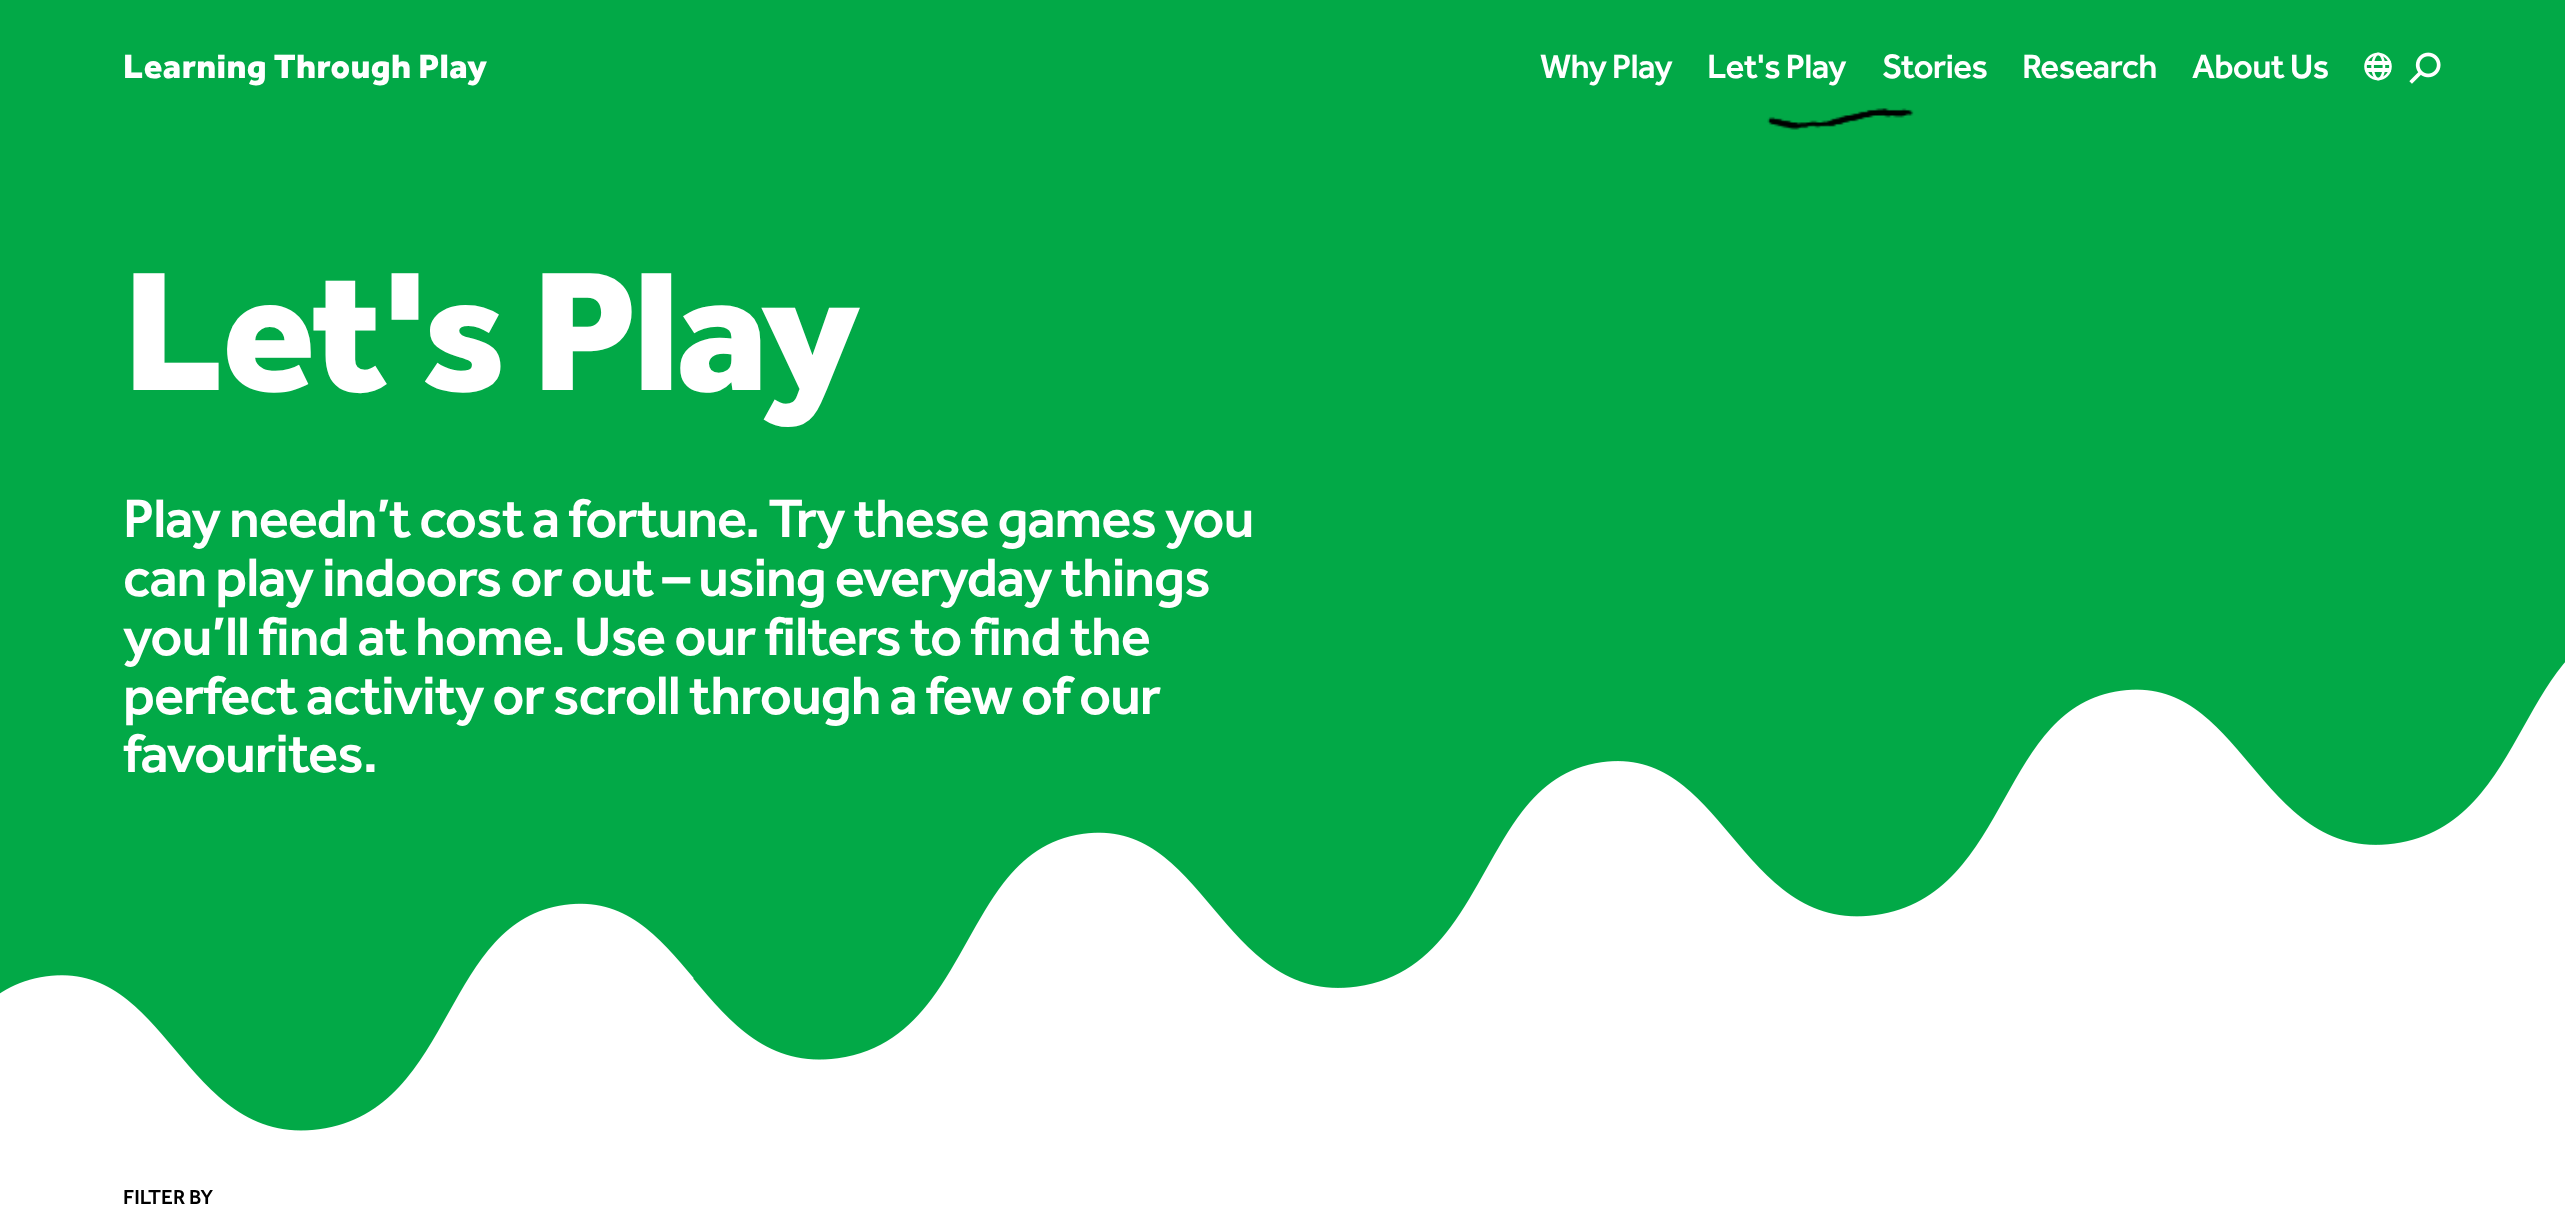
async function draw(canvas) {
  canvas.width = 2565;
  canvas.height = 1205;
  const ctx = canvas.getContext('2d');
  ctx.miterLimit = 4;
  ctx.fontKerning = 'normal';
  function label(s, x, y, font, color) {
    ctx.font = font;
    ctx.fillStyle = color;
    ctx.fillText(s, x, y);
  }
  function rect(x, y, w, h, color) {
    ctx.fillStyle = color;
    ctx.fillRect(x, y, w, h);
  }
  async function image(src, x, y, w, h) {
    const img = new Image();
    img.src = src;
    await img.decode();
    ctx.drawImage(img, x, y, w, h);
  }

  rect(0, 0, 2565, 1205, '#fff');
  rect(0, 0, 2565, 662, '#02a947');
  ctx.letterSpacing = '0.35px';
  label('Learning Through Play', 123, 78, '900 35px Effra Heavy', '#fff');
  ctx.letterSpacing = '-0.75px';
  label('Why Play', 1540, 78, '500 35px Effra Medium', '#fff');
  label('Let\'s Play', 1707, 78, '500 35px Effra Medium', '#fff');
  label('Stories', 1882, 78, '500 35px Effra Medium', '#fff');
  label('Research', 2022, 78, '500 35px Effra Medium', '#fff');
  label('About Us', 2192, 78, '500 35px Effra Medium', '#fff');
  await image('assets/img1.png', 2364, 52, 28, 29);
  await image('assets/img2.png', 2409, 52, 32, 32);
  await image('assets/img3.png', 1767, 108, 147, 22);
  ctx.letterSpacing = '-3.5px';
  label('Let\'s Play', 123, 390, '900 175px Effra Heavy', '#fff');
  ctx.letterSpacing = '-1.1px';
  label('Play needn’t cost a fortune. Try these games you', 123, 537, '500 56px Effra Medium', '#fff');
  label('can play indoors or out – using everyday things', 123, 596, '500 56px Effra Medium', '#fff');
  await image('assets/img4.png', 0, 662, 2565, 469);
  label('you’ll find at home. Use our filters to find the', 123, 655, '500 56px Effra Medium', '#fff');
  label('perfect activity or scroll through a few of our', 123, 714, '500 56px Effra Medium', '#fff');
  label('favourites.', 123, 772, '500 56px Effra Medium', '#fff');
  ctx.letterSpacing = '0px';
  label('FILTER BY', 123, 1204, '500 21px Effra Medium', '#000');
}

draw(document.querySelector('canvas'));
